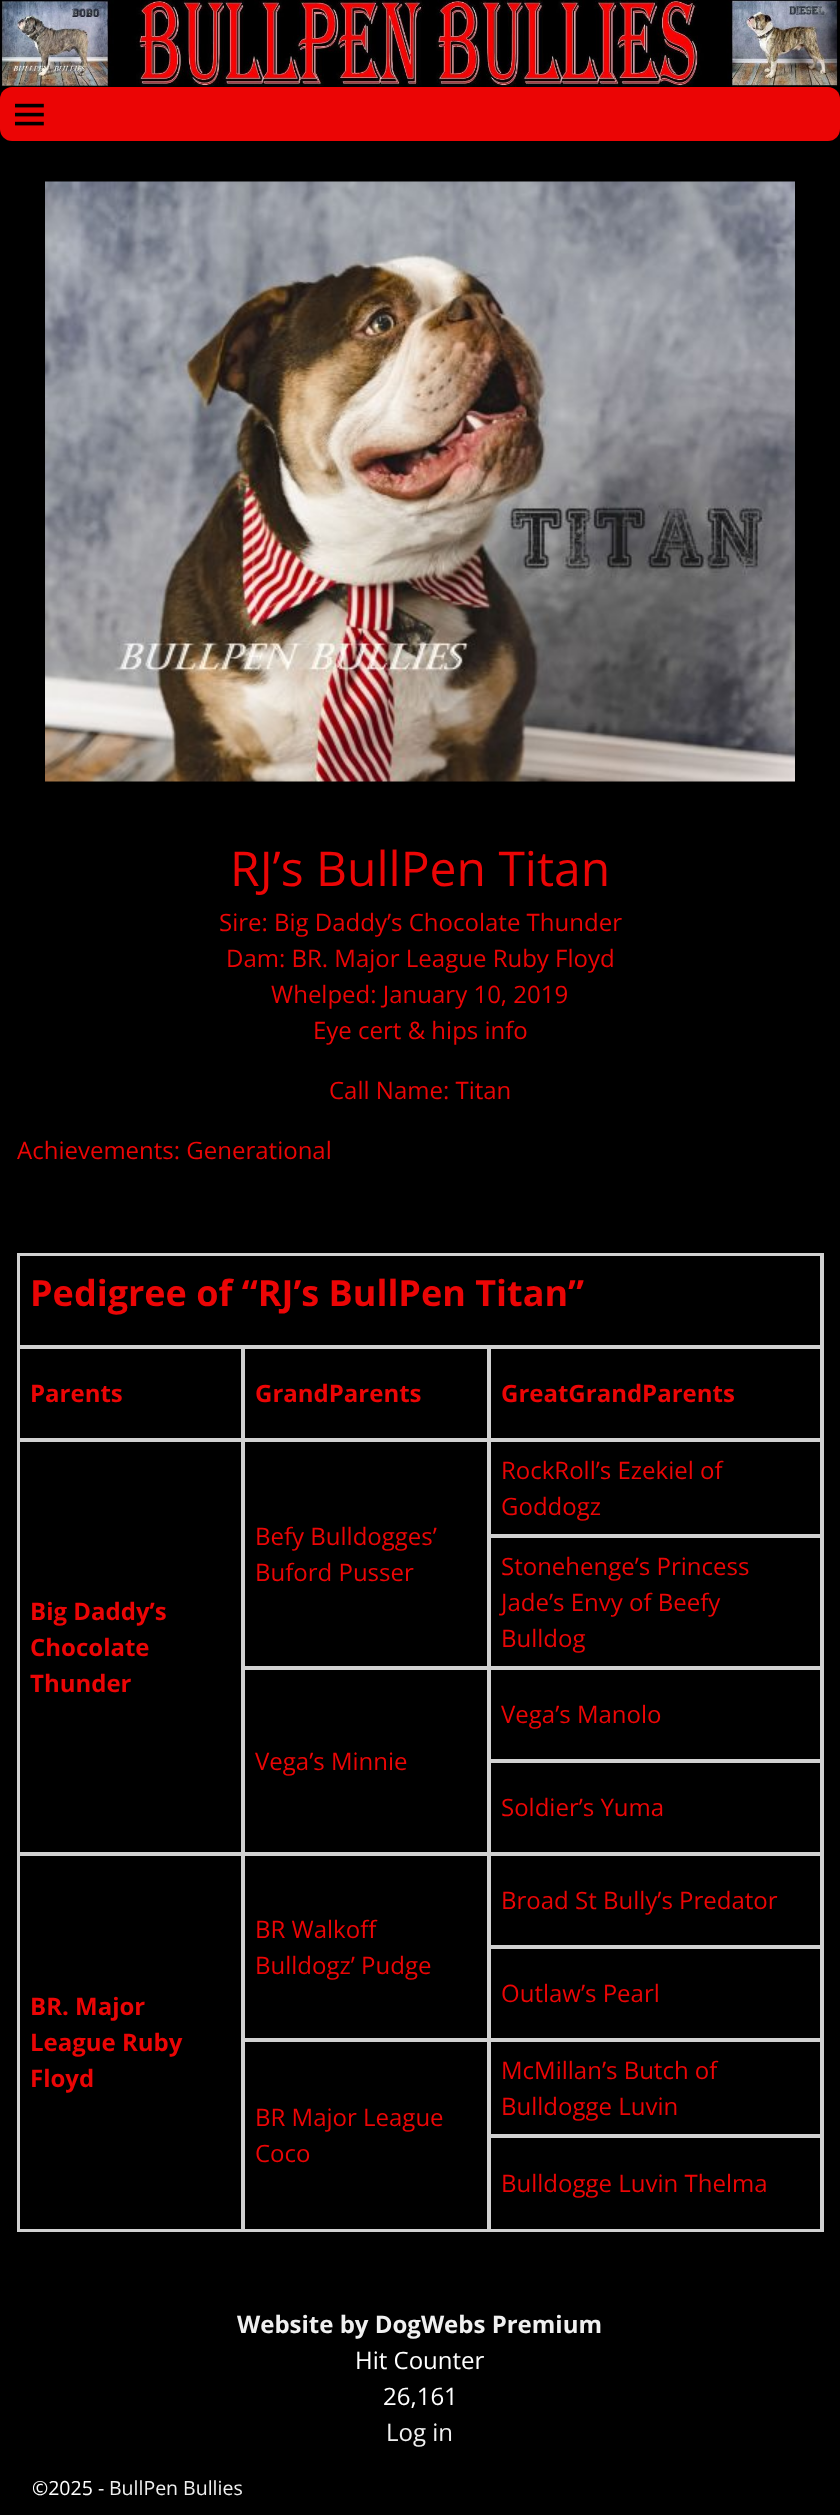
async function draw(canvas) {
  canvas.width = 840;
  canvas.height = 2515;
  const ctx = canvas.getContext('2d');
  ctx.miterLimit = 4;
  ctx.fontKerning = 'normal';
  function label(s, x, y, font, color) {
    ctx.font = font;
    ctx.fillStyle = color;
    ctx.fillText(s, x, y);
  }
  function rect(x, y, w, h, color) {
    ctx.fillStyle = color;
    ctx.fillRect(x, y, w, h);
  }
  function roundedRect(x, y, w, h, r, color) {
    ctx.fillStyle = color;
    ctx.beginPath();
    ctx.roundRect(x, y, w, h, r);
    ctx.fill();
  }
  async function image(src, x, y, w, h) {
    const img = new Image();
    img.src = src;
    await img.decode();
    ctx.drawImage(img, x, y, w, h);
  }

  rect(0, 0, 840, 2515, '#000');
  await image('assets/img1.png', 0, 0, 840, 87);
  roundedRect(0, 87, 840, 54, 12, '#eb0505');
  await image('assets/img2.png', 15, 103, 29, 23);
  await image('assets/img3.png', 45, 181, 750, 601);
  label('RJ’s BullPen Titan', 230, 886, '48px Open Sans', '#eb0505');
  label('Sire: Big Daddy’s Chocolate Thunder', 219, 931, '24px Open Sans', '#eb0505');
  label('Dam: BR. Major League Ruby Floyd', 226, 967, '24px Open Sans', '#eb0505');
  label('Whelped: January 10, 2019', 271, 1003, '24px Open Sans', '#eb0505');
  label('Eye cert & hips info', 313, 1039, '24px Open Sans', '#eb0505');
  label('Call Name: Titan', 329, 1099, '24px Open Sans', '#eb0505');
  label('Achievements: Generational', 17, 1159, '24px Open Sans', '#eb0505');
  ctx.strokeStyle = '#d1d1d1';
  ctx.lineWidth = 2;
  ctx.strokeRect(18, 1254, 805, 977);
  ctx.strokeRect(19, 1255, 802, 91);
  label('Pedigree of “RJ’s BullPen Titan”', 30, 1306, 'bold 36px Open Sans', '#eb0505');
  ctx.strokeRect(19, 1348, 223, 91);
  label('Parents', 30, 1402, 'bold 24px Open Sans', '#eb0505');
  ctx.strokeRect(244, 1348, 244, 91);
  label('GrandParents', 255, 1402, 'bold 24px Open Sans', '#eb0505');
  ctx.strokeRect(490, 1348, 331, 91);
  label('GreatGrandParents', 501, 1402, 'bold 24px Open Sans', '#eb0505');
  ctx.strokeRect(490, 1441, 331, 94);
  label('RockRoll’s Ezekiel of', 501, 1479, '24px Open Sans', '#eb0505');
  label('Goddogz', 501, 1515, '24px Open Sans', '#eb0505');
  ctx.strokeRect(244, 1441, 244, 226);
  label('Befy Bulldogges’', 255, 1545, '24px Open Sans', '#eb0505');
  label('Buford Pusser', 255, 1581, '24px Open Sans', '#eb0505');
  ctx.strokeRect(19, 1441, 223, 412);
  label('Big Daddy’s', 30, 1620, 'bold 24px Open Sans', '#eb0505');
  label('Chocolate', 30, 1656, 'bold 24px Open Sans', '#eb0505');
  label('Thunder', 30, 1692, 'bold 24px Open Sans', '#eb0505');
  ctx.strokeRect(490, 1537, 331, 130);
  label('Stonehenge’s Princess', 501, 1575, '24px Open Sans', '#eb0505');
  label('Jade’s Envy of Beefy', 501, 1611, '24px Open Sans', '#eb0505');
  label('Bulldog', 501, 1647, '24px Open Sans', '#eb0505');
  ctx.strokeRect(490, 1669, 331, 91);
  label('Vega’s Manolo', 501, 1723, '24px Open Sans', '#eb0505');
  ctx.strokeRect(244, 1669, 244, 184);
  label('Vega’s Minnie', 255, 1770, '24px Open Sans', '#eb0505');
  ctx.strokeRect(490, 1762, 331, 91);
  label('Soldier’s Yuma', 501, 1816, '24px Open Sans', '#eb0505');
  ctx.strokeRect(490, 1855, 331, 91);
  label('Broad St Bully’s Predator', 501, 1909, '24px Open Sans', '#eb0505');
  ctx.strokeRect(244, 1855, 244, 184);
  label('BR Walkoff', 255, 1938, '24px Open Sans', '#eb0505');
  label('Bulldogz’ Pudge', 255, 1974, '24px Open Sans', '#eb0505');
  ctx.strokeRect(19, 1855, 223, 375);
  label('BR. Major', 30, 2015, 'bold 24px Open Sans', '#eb0505');
  label('League Ruby', 30, 2051, 'bold 24px Open Sans', '#eb0505');
  label('Floyd', 30, 2087, 'bold 24px Open Sans', '#eb0505');
  ctx.strokeRect(490, 1948, 331, 91);
  label('Outlaw’s Pearl', 501, 2002, '24px Open Sans', '#eb0505');
  ctx.strokeRect(490, 2041, 331, 94);
  label('McMillan’s Butch of', 501, 2079, '24px Open Sans', '#eb0505');
  label('Bulldogge Luvin', 501, 2115, '24px Open Sans', '#eb0505');
  ctx.strokeRect(244, 2041, 244, 189);
  label('BR Major League', 255, 2126, '24px Open Sans', '#eb0505');
  label('Coco', 255, 2162, '24px Open Sans', '#eb0505');
  ctx.strokeRect(490, 2137, 331, 93);
  label('Bulldogge Luvin Thelma', 501, 2192, '24px Open Sans', '#eb0505');
  label('Website by DogWebs Premium', 237, 2333, 'bold 24px Open Sans', '#f0f0f0');
  label('Hit Counter', 355, 2369, '24px Open Sans', '#fff');
  label('26,161', 383, 2405, '24px Open Sans', '#fff');
  label('Log in', 386, 2441, '24px Open Sans', '#f0f0f0');
  label('©2025 -', 32, 2495, '19.5px Open Sans', '#fff');
  label('BullPen Bullies', 109, 2495, '19.5px Open Sans', '#f0f0f0');
}

draw(document.querySelector('canvas'));
